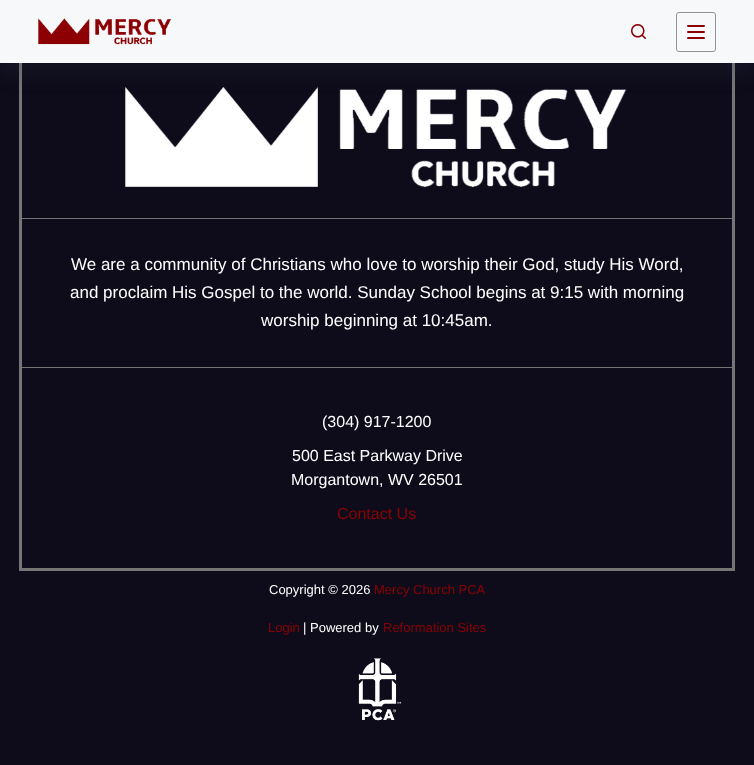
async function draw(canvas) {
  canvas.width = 754;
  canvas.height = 765;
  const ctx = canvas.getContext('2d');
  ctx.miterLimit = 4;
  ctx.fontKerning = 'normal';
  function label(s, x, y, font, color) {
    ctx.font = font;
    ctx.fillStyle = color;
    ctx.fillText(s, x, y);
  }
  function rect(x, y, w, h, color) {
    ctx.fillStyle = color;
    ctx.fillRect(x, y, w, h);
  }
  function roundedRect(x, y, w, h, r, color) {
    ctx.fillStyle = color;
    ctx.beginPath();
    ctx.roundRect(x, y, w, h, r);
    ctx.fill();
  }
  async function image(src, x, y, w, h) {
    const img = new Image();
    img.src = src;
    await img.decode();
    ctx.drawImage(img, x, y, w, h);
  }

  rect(0, 0, 754, 765, '#0e0c1b');
  ctx.strokeStyle = '#757575';
  ctx.lineWidth = 3;
  ctx.strokeRect(20.5, 55.5, 713, 514);
  await image('assets/img3.png', 125, 87, 502, 101);
  ctx.fillStyle = '#2b3d4f2e';
  ctx.filter = 'blur(10px)';
  ctx.beginPath();
  ctx.rect(0, 10, 754, 63);
  ctx.fill();
  ctx.filter = 'none';
  rect(0, 0, 754, 63, '#f7f8fa');
  await image('assets/img1.png', 38, 18, 133, 27);
  await image('assets/img2.png', 631, 24, 15, 15);
  ctx.beginPath();
  ctx.roundRect(676.5, 12.5, 39, 39, 2.5);
  ctx.strokeStyle = '#929292';
  ctx.lineWidth = 1;
  ctx.stroke();
  roundedRect(687, 25, 18, 2, 1, '#8c0004');
  roundedRect(687, 31, 18, 2, 1, '#8c0004');
  roundedRect(687, 37, 18, 2, 1, '#8c0004');
  rect(22, 218, 710, 1, '#757575');
  rect(22, 367, 710, 1, '#757575');
  label('We are a community of Christians who love to worship their God, study His Word,', 71, 270, '17px Liberation Sans', '#fff');
  label('and proclaim His Gospel to the world. Sunday School begins at 9:15 with morning', 70, 298, '17px Liberation Sans', '#fff');
  label('worship beginning at 10:45am.', 261, 326, '17px Liberation Sans', '#fff');
  label('(304) 917-1200', 322, 427, '16px Liberation Sans', '#fff');
  label('500 East Parkway Drive', 292, 461, '16px Liberation Sans', '#fff');
  label('Morgantown, WV 26501', 291, 485, '16px Liberation Sans', '#fff');
  label('Contact Us', 337, 519, '16px Liberation Sans', '#8c0004');
  label('Copyright © 2026', 269, 594, '13px Liberation Sans', '#fff');
  label('Mercy Church PCA', 374, 594, '13px Liberation Sans', '#8c0004');
  label('Login', 268, 632, '13px Liberation Sans', '#8c0004');
  label('| Powered by', 303, 632, '13px Liberation Sans', '#fff');
  label('Reformation Sites', 383, 632, '13px Liberation Sans', '#8c0004');
  await image('assets/img4.png', 358, 658, 43, 63);
}

draw(document.querySelector('canvas'));
